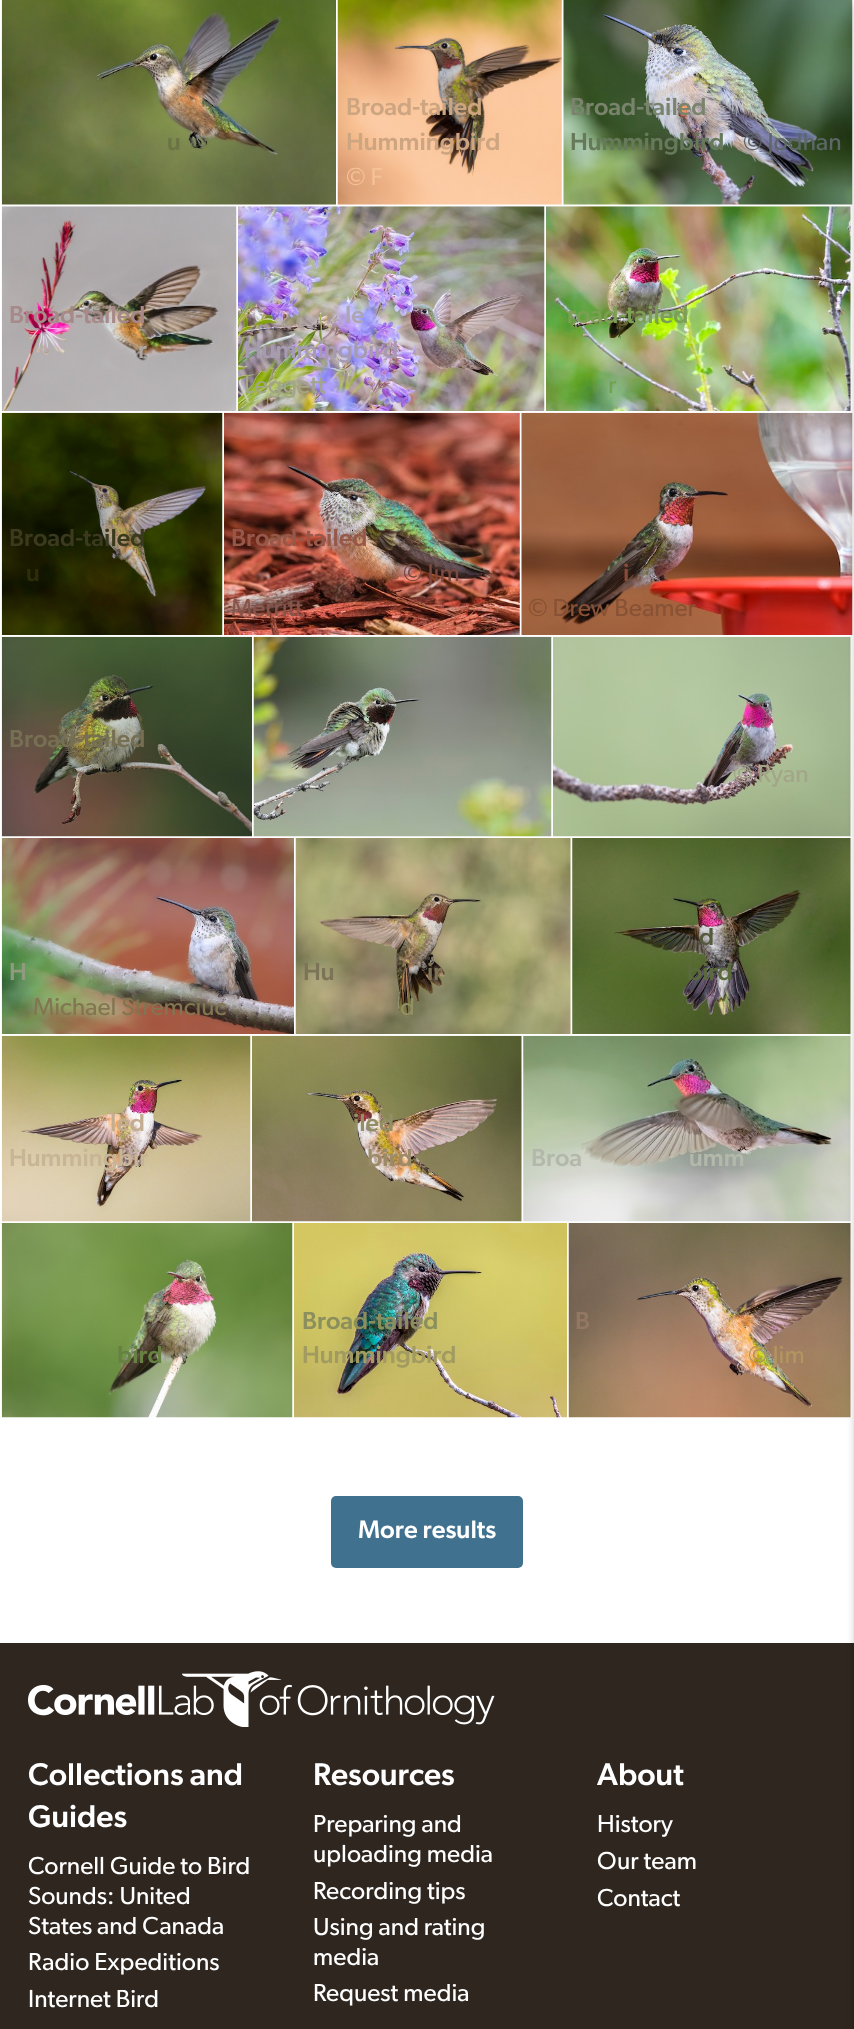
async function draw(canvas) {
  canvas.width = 854;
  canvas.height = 2029;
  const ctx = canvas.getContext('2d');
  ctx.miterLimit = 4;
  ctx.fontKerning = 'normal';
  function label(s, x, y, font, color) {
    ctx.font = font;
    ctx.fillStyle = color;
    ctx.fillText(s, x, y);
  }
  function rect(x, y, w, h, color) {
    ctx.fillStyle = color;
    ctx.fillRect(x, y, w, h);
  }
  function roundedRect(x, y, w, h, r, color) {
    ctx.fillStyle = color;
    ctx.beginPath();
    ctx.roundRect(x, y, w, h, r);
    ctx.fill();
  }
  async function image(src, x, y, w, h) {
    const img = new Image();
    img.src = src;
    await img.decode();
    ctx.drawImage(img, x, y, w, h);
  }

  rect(0, 0, 854, 2029, '#fff');
  await image('assets/img1.png', 1, 0, 335, 205);
  label('u', 167, 150, '500 24.75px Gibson', '#6b7444');
  await image('assets/img2.png', 337, 0, 225, 205);
  label('Broad-tailed', 346, 115, '500 24.75px Gibson', '#cda580');
  label('Hummingbird', 346, 150, '500 24.75px Gibson', '#cda580');
  label('© F', 346, 185, '24.75px Gibson', '#f6c197');
  await image('assets/img3.png', 563, 0, 290, 205);
  label('Broad-tailed', 570, 115, '500 24.75px Gibson', '#7a846d');
  label('Hummingbird', 570, 150, '500 24.75px Gibson', '#66795b');
  label('© Jodhan', 743, 150, '24.75px Gibson', '#5d6768');
  await image('assets/img4.png', 1, 206, 236, 205);
  label('Broad-tailed', 9, 323, '500 24.75px Gibson', '#a88989');
  label('r', 138, 358, '500 24.75px Gibson', '#afa7a2');
  await image('assets/img5.png', 238, 206, 307, 205);
  label('le', 345, 323, '500 24.75px Gibson', '#ada4b4');
  label('Hummingbird', 244, 358, '500 24.75px Gibson', '#a79bb3');
  label('Leggett', 244, 393, '24.75px Gibson', '#a2a587');
  await image('assets/img6.png', 546, 206, 305, 205);
  label('road-tailed', 567, 323, '500 24.75px Gibson', '#7c9f54');
  label('r', 608, 393, '24.75px Gibson', '#70a34f');
  await image('assets/img7.png', 1, 412, 222, 223);
  label('Broad-tailed', 9, 546, '500 24.75px Gibson', '#3c3a1e');
  label('u', 26, 581, '500 24.75px Gibson', '#2d2e09');
  await image('assets/img8.png', 224, 412, 296, 223);
  label('Broad-tailed', 231, 546, '500 24.75px Gibson', '#975849');
  label('© Jim', 403, 581, '24.75px Gibson', '#7a493f');
  label('Merritt', 231, 616, '24.75px Gibson', '#89554b');
  await image('assets/img9.png', 521, 412, 332, 223);
  label('i', 623, 581, '500 24.75px Gibson', '#894b35');
  ctx.save();
  ctx.beginPath();
  ctx.rect(529, 558, 316, 70);
  ctx.clip();
  label('© Drew Beamer', 528, 616, '24.75px Gibson', '#875235');
  ctx.restore();
  await image('assets/img10.png', 1, 636, 251, 201);
  label('Broad-tailed', 9, 747, '500 24.75px Gibson', '#766f54');
  await image('assets/img11.png', 253, 636, 299, 201);
  await image('assets/img12.png', 553, 636, 298, 201);
  label('© Ryan', 733, 782, '24.75px Gibson', '#a2a587');
  await image('assets/img13.png', 572, 838, 279, 196);
  label('-', 644, 945, '500 24.75px Gibson', '#555a3d');
  label('d', 699, 945, '500 24.75px Gibson', '#555a3d');
  label('bird', 687, 980, '500 24.75px Gibson', '#5a6a3c');
  await image('assets/img14.png', 1, 838, 293, 196);
  label('H', 9, 980, '500 24.75px Gibson', '#909b7d');
  label('Michael Stremciuc', 33, 1015, '24.75px Gibson', '#827551');
  await image('assets/img15.png', 295, 838, 276, 196);
  label('Hu', 303, 980, '500 24.75px Gibson', '#7d7357');
  label('ir', 427, 980, '500 24.75px Gibson', '#7d7357');
  label('d', 400, 1015, '24.75px Gibson', '#938f65');
  await image('assets/img16.png', 1, 1035, 250, 187);
  label('led', 110, 1131, '500 24.75px Gibson', '#c3ac90');
  label('Hummingbir', 9, 1166, '500 24.75px Gibson', '#c8b596');
  await image('assets/img17.png', 252, 1035, 270, 187);
  label('iled', 353, 1131, '500 24.75px Gibson', '#938f65');
  label('bird', 367, 1166, '500 24.75px Gibson', '#9b8b68');
  await image('assets/img18.png', 523, 1035, 328, 187);
  label('Broa', 531, 1166, '500 24.75px Gibson', '#b3b8ab');
  label('umm', 689, 1166, '500 24.75px Gibson', '#b3b8ab');
  await image('assets/img19.png', 1, 1223, 292, 195);
  label('bird', 117, 1363, '500 24.75px Gibson', '#678143');
  await image('assets/img20.png', 294, 1223, 273, 195);
  label('Broad-tailed', 302, 1329, '500 24.75px Gibson', '#8b8f5e');
  label('Hummingbird', 302, 1363, '500 24.75px Gibson', '#a29b61');
  await image('assets/img21.png', 568, 1223, 283, 195);
  label('B', 575, 1329, '500 24.75px Gibson', '#937762');
  label('© Jim', 748, 1363, '24.75px Gibson', '#b39560');
  roundedRect(331, 1496, 192, 72, 5, '#40718f');
  label('More results', 358, 1538, '500 25.25px Gibson', '#fff');
  rect(0, 1643, 854, 386, '#2e261f');
  ctx.fillStyle = '#00000033';
  ctx.filter = 'blur(3.5px)';
  ctx.beginPath();
  ctx.rect(854, 4, 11, 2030);
  ctx.fill();
  ctx.filter = 'none';
  await image('assets/img22.png', 28, 1671, 467, 56);
  label('Collections and', 28, 1785, '500 31.5px Gibson', '#fff');
  label('Guides', 28, 1827, '500 31.5px Gibson', '#fff');
  label('Cornell Guide to Bird', 28, 1874, '24.75px Gibson', '#fff');
  label('Sounds: United', 28, 1904, '24.75px Gibson', '#fff');
  label('States and Canada', 28, 1934, '24.75px Gibson', '#fff');
  label('Radio Expeditions', 28, 1970, '24.75px Gibson', '#fff');
  label('Internet Bird', 28, 2007, '24.75px Gibson', '#fff');
  label('Resources', 313, 1785, '500 31.5px Gibson', '#fff');
  label('Preparing and', 313, 1832, '24.75px Gibson', '#fff');
  label('uploading media', 313, 1862, '24.75px Gibson', '#fff');
  label('Recording tips', 313, 1899, '24.75px Gibson', '#fff');
  label('Using and rating', 313, 1935, '24.75px Gibson', '#fff');
  label('media', 313, 1965, '24.75px Gibson', '#fff');
  label('Request media', 313, 2001, '24.75px Gibson', '#fff');
  label('About', 597, 1785, '500 31.5px Gibson', '#fff');
  label('History', 597, 1832, '24.75px Gibson', '#fff');
  label('Our team', 597, 1869, '24.75px Gibson', '#fff');
  label('Contact', 597, 1906, '24.75px Gibson', '#fff');
}

draw(document.querySelector('canvas'));
